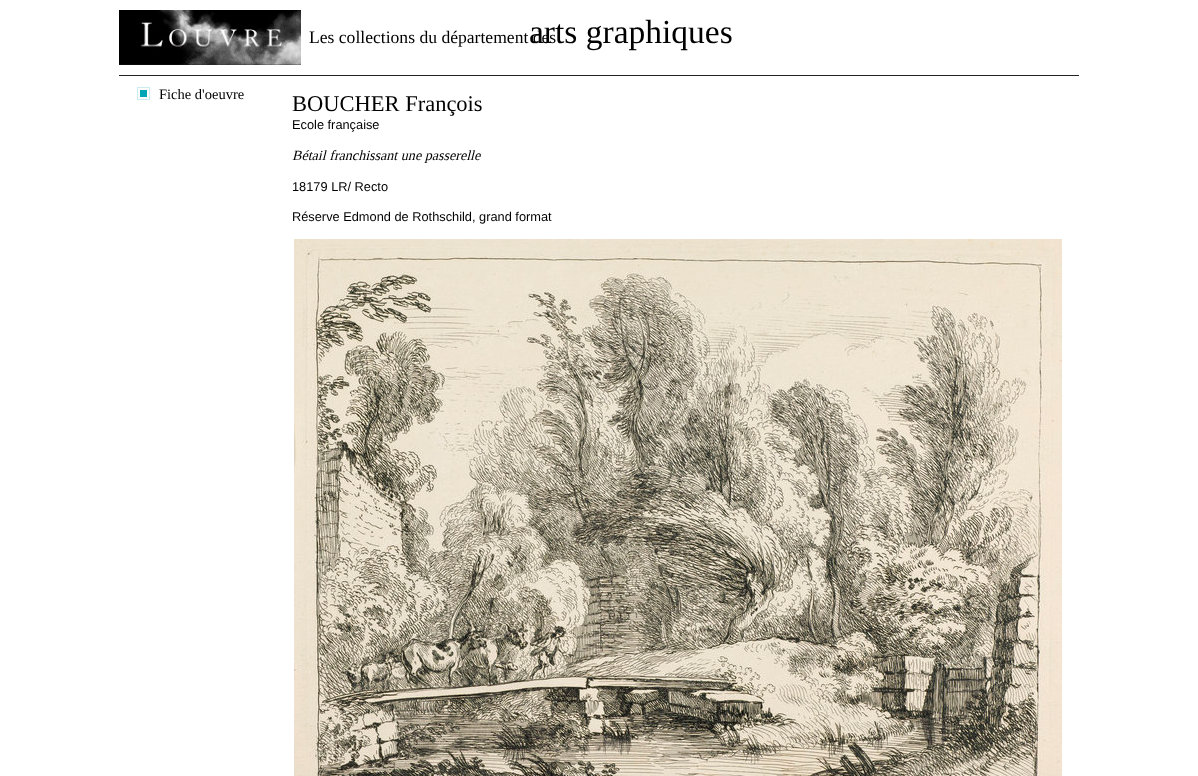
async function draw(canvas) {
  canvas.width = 1198;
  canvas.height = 776;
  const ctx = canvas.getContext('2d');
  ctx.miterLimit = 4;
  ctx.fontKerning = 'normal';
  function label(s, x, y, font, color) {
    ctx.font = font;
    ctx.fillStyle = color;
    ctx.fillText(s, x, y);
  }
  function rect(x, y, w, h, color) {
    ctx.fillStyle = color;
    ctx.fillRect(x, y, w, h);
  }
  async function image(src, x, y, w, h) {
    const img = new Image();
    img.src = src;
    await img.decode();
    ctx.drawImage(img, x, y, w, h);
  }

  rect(0, 0, 1198, 776, '#fff');
  rect(119, 75, 960, 1, '#222');
  await image('assets/img1.png', 119, 10, 182, 55);
  label('Les collections du département des', 309, 43, '17.6px Tinos', '#000');
  label('arts graphiques', 529, 43, '33.5px Tinos', '#000');
  await image('assets/img2.png', 137, 87, 13, 13);
  label('Fiche d\'oeuvre', 159, 99, '14.5px Tinos', '#000');
  label('BOUCHER François', 292, 111, '22.5px Tinos', '#000');
  label('Ecole française', 292, 129, '12.8px Liberation Sans', '#000');
  label('Bétail franchissant une passerelle', 292, 160, 'italic 14.1px Tinos', '#000');
  label('18179 LR/ Recto', 292, 191, '12.8px Liberation Sans', '#000');
  label('Réserve Edmond de Rothschild, grand format', 292, 221, '12.8px Liberation Sans', '#000');
  await image('assets/img3.png', 294, 239, 768, 537);
}

draw(document.querySelector('canvas'));
